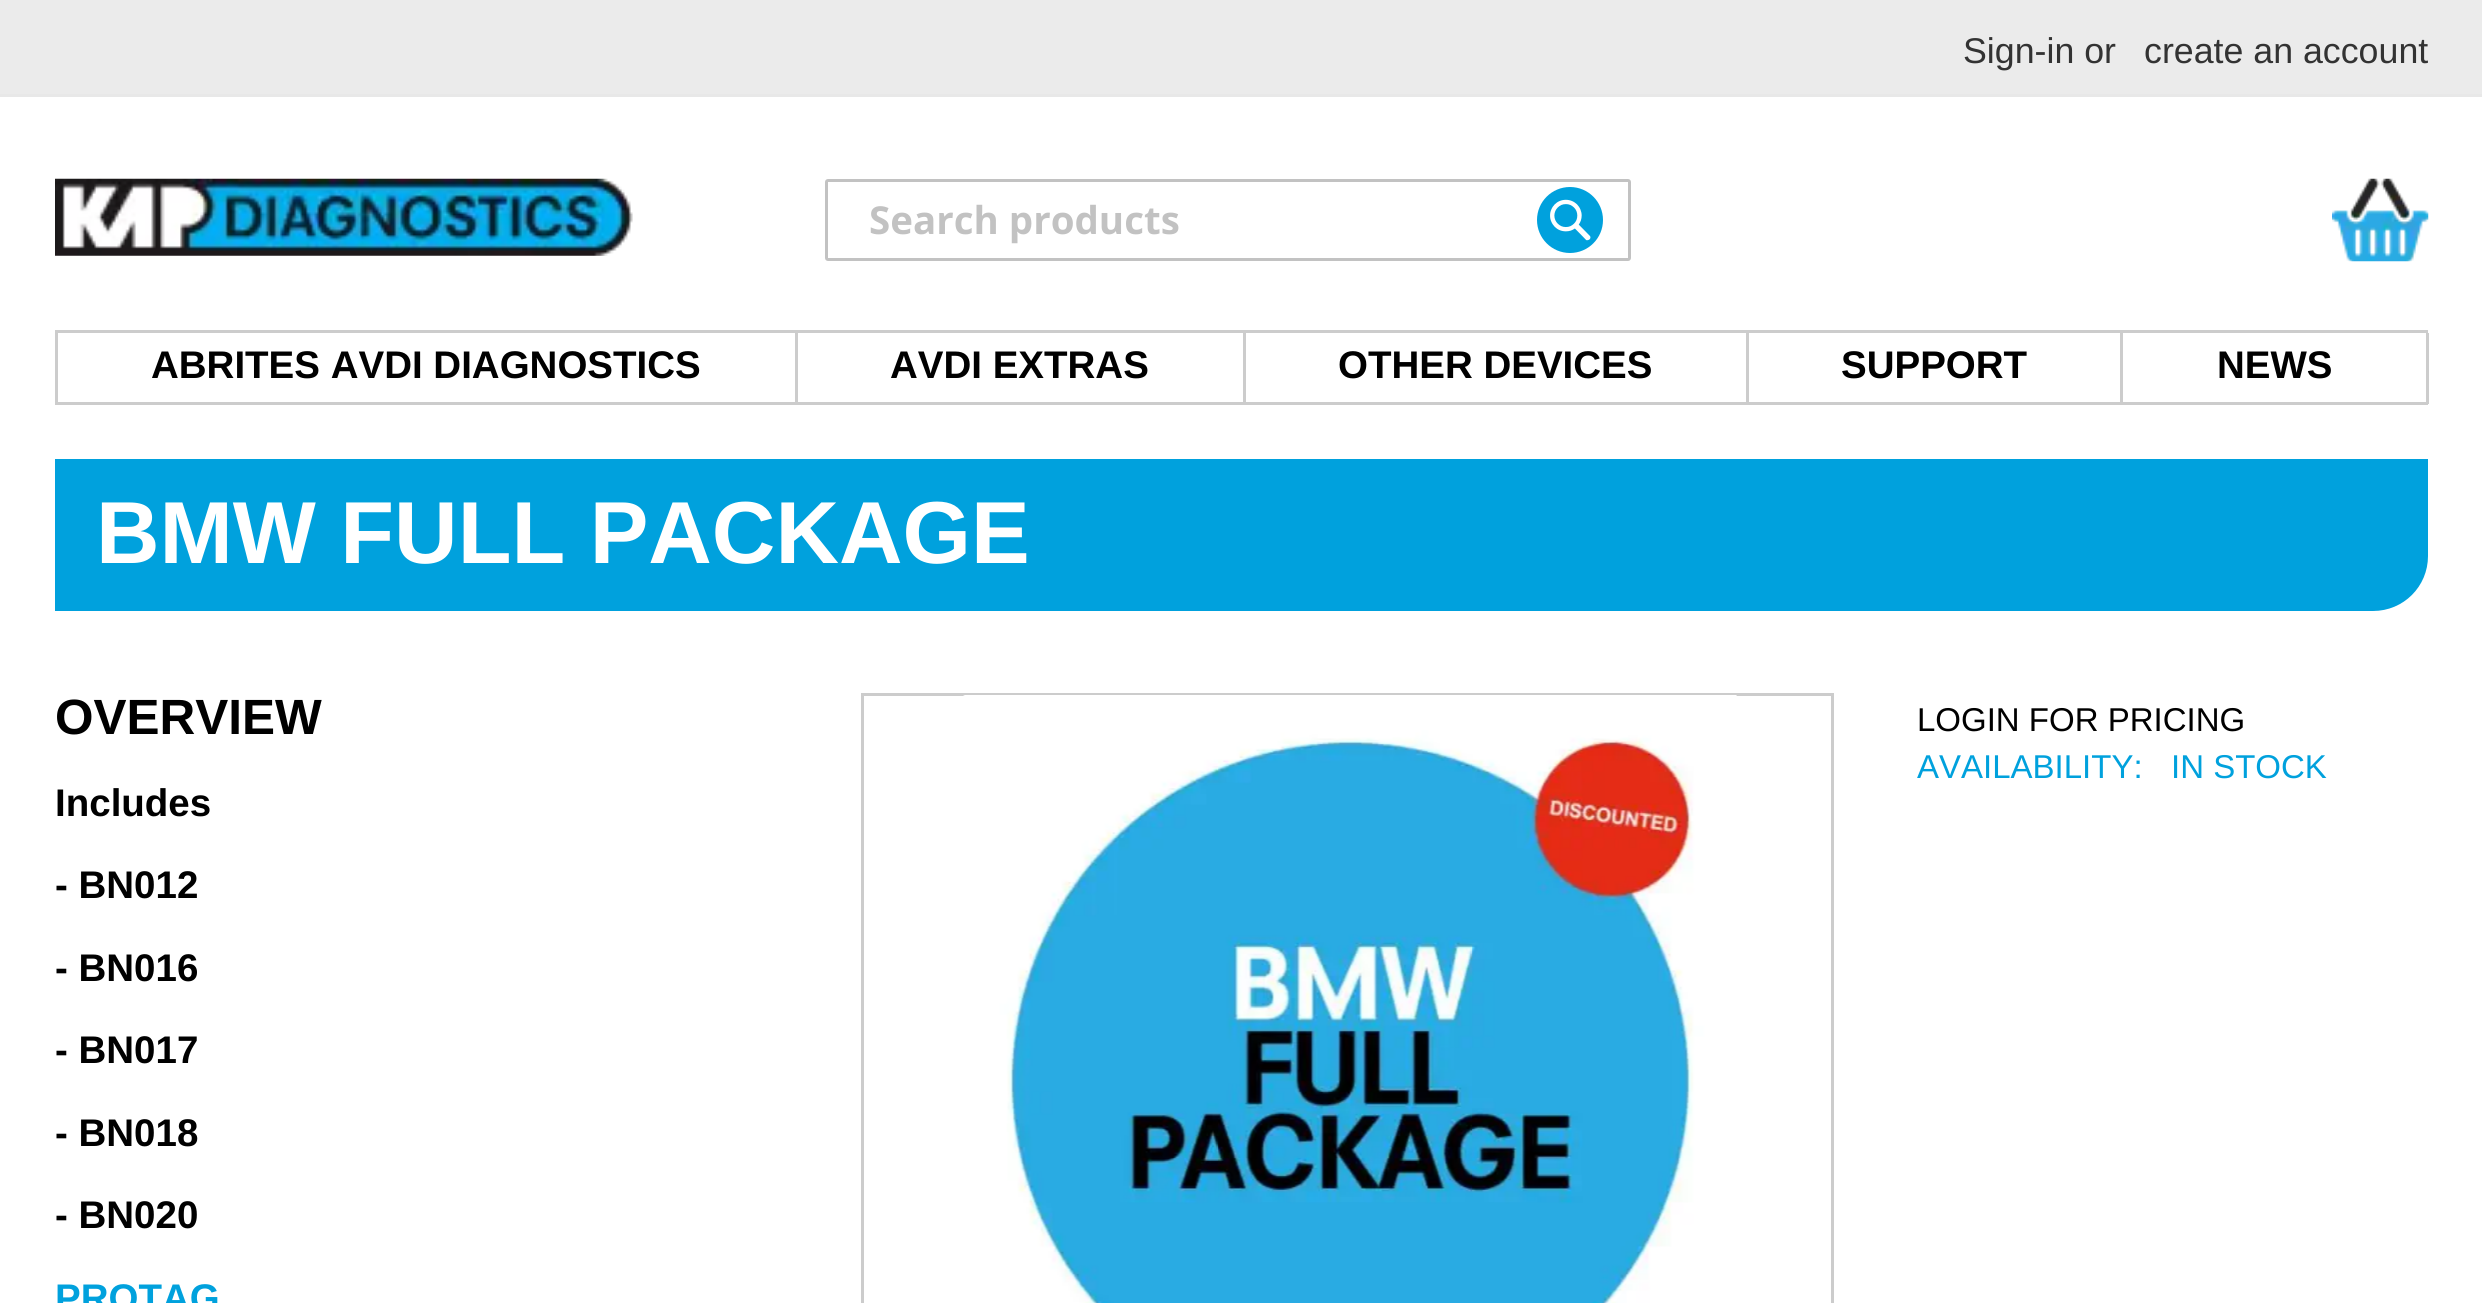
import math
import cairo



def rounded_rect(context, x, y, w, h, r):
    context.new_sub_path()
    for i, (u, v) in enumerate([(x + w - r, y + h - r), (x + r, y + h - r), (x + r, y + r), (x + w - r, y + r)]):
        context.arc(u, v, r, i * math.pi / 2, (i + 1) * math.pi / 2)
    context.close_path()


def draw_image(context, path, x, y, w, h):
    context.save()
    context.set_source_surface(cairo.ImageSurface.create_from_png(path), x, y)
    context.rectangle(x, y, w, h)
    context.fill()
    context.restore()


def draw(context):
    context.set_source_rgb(1, 1, 1)
    context.paint()
    context.set_source_rgb(235 / 255, 235 / 255, 235 / 255)
    context.rectangle(0, 0, 2482, 94)
    context.fill()
    context.set_source_rgb(232 / 255, 232 / 255, 232 / 255)
    context.rectangle(0, 94, 2482, 3)
    context.fill()
    draw_image(context, "images/1.png", 55, 178, 578, 78)
    rounded_rect(context, 826.5, 180.5, 803, 79, 1.5)
    context.set_source_rgb(194 / 255, 194 / 255, 194 / 255)
    context.set_line_width(3)
    context.stroke()
    context.set_source_rgb(0, 161 / 255, 221 / 255)
    context.arc(1570, 220, 33, 0, 2 * math.pi)
    context.fill()
    draw_image(context, "images/2.png", 1550, 199, 41, 42)
    draw_image(context, "images/3.png", 2332, 178, 97, 84)
    context.set_source_rgb(204 / 255, 204 / 255, 204 / 255)
    context.rectangle(55, 330, 2373, 3)
    context.fill()
    context.rectangle(55, 402, 2065, 3)
    context.fill()
    context.rectangle(55, 333, 3, 71)
    context.fill()
    context.rectangle(795, 333, 3, 71)
    context.fill()
    context.rectangle(1243, 333, 3, 71)
    context.fill()
    context.rectangle(1746, 333, 3, 71)
    context.fill()
    context.rectangle(2426, 333, 3, 71)
    context.fill()
    context.rectangle(2120, 402, 308, 3)
    context.fill()
    context.rectangle(2120, 333, 3, 71)
    context.fill()
    context.set_source_rgb(0, 161 / 255, 221 / 255)
    context.new_path()
    context.move_to(55, 459)
    context.line_to(2428, 459)
    context.line_to(2428, 556)
    context.curve_to(2428, 586.5, 2403.5, 611, 2373, 611)
    context.line_to(55, 611)
    context.close_path()
    context.fill()
    context.rectangle(862.5, 694.5, 970, 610)
    context.set_source_rgb(204 / 255, 204 / 255, 204 / 255)
    context.stroke()
    draw_image(context, "images/4.png", 963, 695, 774, 608)
    context.select_font_face("Liberation Sans")
    context.set_font_size(35.75)
    context.set_source_rgb(51 / 255, 51 / 255, 51 / 255)
    context.move_to(1963, 63)
    context.show_text("Sign-in or")
    context.move_to(2144, 63)
    context.show_text("create an account")
    context.select_font_face("Open Sans", cairo.FontSlant.NORMAL, cairo.FontWeight.BOLD)
    context.set_font_size(38.5)
    context.set_source_rgb(194 / 255, 194 / 255, 194 / 255)
    context.move_to(869, 234)
    context.show_text("Search products")
    context.select_font_face("Liberation Sans", cairo.FontSlant.NORMAL, cairo.FontWeight.BOLD)
    context.set_source_rgb(0, 0, 0)
    context.move_to(151, 378)
    context.show_text("ABRITES AVDI DIAGNOSTICS")
    context.move_to(890, 378)
    context.show_text("AVDI EXTRAS")
    context.move_to(1338, 378)
    context.show_text("OTHER DEVICES")
    context.move_to(1841, 378)
    context.show_text("SUPPORT")
    context.move_to(2217, 378)
    context.show_text("NEWS")
    context.set_font_size(88)
    context.set_source_rgb(1, 1, 1)
    context.move_to(96, 563)
    context.show_text("BMW FULL PACKAGE")
    context.set_font_size(49.5)
    context.set_source_rgb(0, 0, 0)
    context.move_to(55, 734)
    context.show_text("OVERVIEW")
    context.set_font_size(38.5)
    context.move_to(55, 816)
    context.show_text("Includes")
    context.move_to(55, 898)
    context.show_text("- BN012")
    context.move_to(55, 981)
    context.show_text("- BN016")
    context.move_to(55, 1063)
    context.show_text("- BN017")
    context.move_to(55, 1146)
    context.show_text("- BN018")
    context.move_to(55, 1228)
    context.show_text("- BN020")
    context.set_source_rgb(0, 161 / 255, 221 / 255)
    context.move_to(55, 1311)
    context.show_text("PROTAG")
    context.select_font_face("Liberation Sans")
    context.set_font_size(33)
    context.set_source_rgb(0, 0, 0)
    context.move_to(1917, 731)
    context.show_text("LOGIN FOR PRICING")
    context.set_source_rgb(0, 161 / 255, 221 / 255)
    context.move_to(1917, 778)
    context.show_text("AVAILABILITY:")
    context.move_to(2171, 778)
    context.show_text("IN STOCK")


surface = cairo.ImageSurface(cairo.Format.RGB24, 2482, 1303)
context = cairo.Context(surface)
options = cairo.FontOptions()
options.set_hint_metrics(cairo.HintMetrics.OFF)
options.set_hint_style(cairo.HintStyle.NONE)
context.set_font_options(options)
context.set_miter_limit(4)
draw(context)
surface.write_to_png("out.png")
